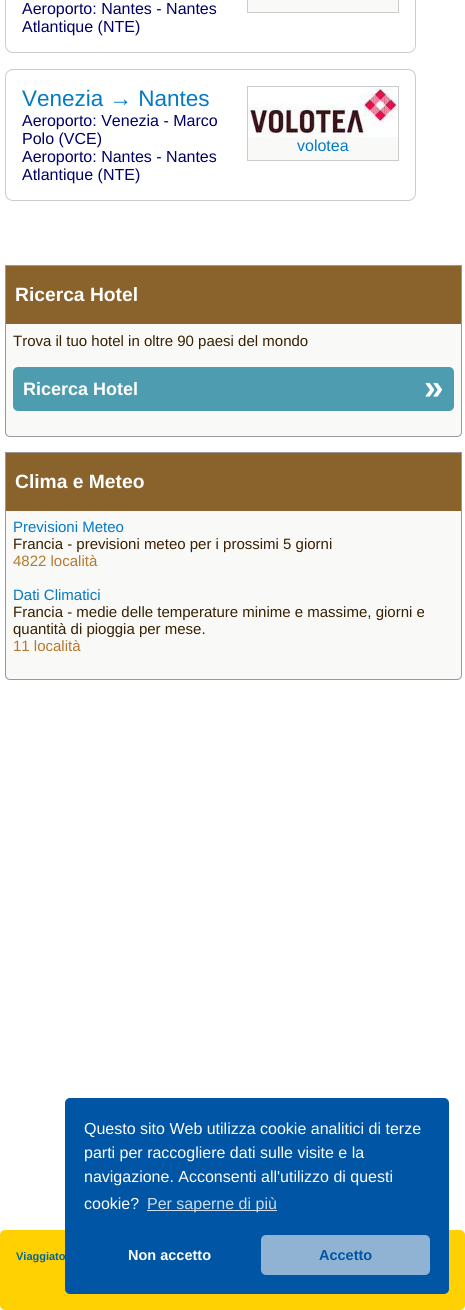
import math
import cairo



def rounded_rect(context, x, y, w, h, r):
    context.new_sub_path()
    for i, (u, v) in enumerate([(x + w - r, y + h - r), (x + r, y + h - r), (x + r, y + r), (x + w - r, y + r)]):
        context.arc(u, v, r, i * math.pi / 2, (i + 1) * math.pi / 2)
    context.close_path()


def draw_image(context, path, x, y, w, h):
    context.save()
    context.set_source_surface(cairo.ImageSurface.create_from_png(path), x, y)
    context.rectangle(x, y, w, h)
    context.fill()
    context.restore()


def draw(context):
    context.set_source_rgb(1, 1, 1)
    context.paint()
    rounded_rect(context, 5.5, -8.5, 410, 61, 7.5)
    context.set_source_rgb(204 / 255, 204 / 255, 204 / 255)
    context.set_line_width(1)
    context.stroke()
    context.set_source_rgb(249 / 255, 249 / 255, 247 / 255)
    context.rectangle(247.5, -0.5, 151, 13)
    context.fill_preserve()
    context.set_source_rgb(204 / 255, 204 / 255, 204 / 255)
    context.stroke()
    rounded_rect(context, 5.5, 69.5, 410, 131, 7.5)
    context.stroke()
    context.set_source_rgb(249 / 255, 249 / 255, 247 / 255)
    context.rectangle(248, 137, 150, 23)
    context.fill()
    context.rectangle(247.5, 86.5, 151, 74)
    context.set_source_rgb(204 / 255, 204 / 255, 204 / 255)
    context.stroke()
    draw_image(context, "images/1.png", 248, 87, 150, 50)
    context.set_source_rgb(249 / 255, 249 / 255, 247 / 255)
    context.new_path()
    context.move_to(5.5, 265.5)
    context.line_to(461.5, 265.5)
    context.line_to(461.5, 432)
    context.curve_to(461.5, 434.5, 459.5, 436.5, 457, 436.5)
    context.line_to(10, 436.5)
    context.curve_to(7.5, 436.5, 5.5, 434.5, 5.5, 432)
    context.close_path()
    context.fill_preserve()
    context.set_source_rgb(153 / 255, 153 / 255, 153 / 255)
    context.stroke()
    context.set_source_rgb(137 / 255, 98 / 255, 44 / 255)
    context.rectangle(6, 266, 455, 58)
    context.fill()
    context.set_source_rgb(78 / 255, 156 / 255, 175 / 255)
    rounded_rect(context, 13, 367, 441, 44, 5)
    context.fill()
    context.set_source_rgb(249 / 255, 249 / 255, 247 / 255)
    context.new_path()
    context.move_to(5.5, 452.5)
    context.line_to(461.5, 452.5)
    context.line_to(461.5, 675)
    context.curve_to(461.5, 677.5, 459.5, 679.5, 457, 679.5)
    context.line_to(10, 679.5)
    context.curve_to(7.5, 679.5, 5.5, 677.5, 5.5, 675)
    context.close_path()
    context.fill_preserve()
    context.set_source_rgb(153 / 255, 153 / 255, 153 / 255)
    context.stroke()
    context.set_source_rgb(137 / 255, 98 / 255, 44 / 255)
    context.rectangle(6, 453, 455, 58)
    context.fill()
    context.set_source_rgb(1, 208 / 255, 2 / 255)
    rounded_rect(context, 0, 1230, 465, 80, 5)
    context.fill()
    context.select_font_face("Liberation Sans")
    context.set_font_size(16)
    context.set_source_rgb(0, 0, 102 / 255)
    context.move_to(22, 14)
    context.show_text("Aeroporto: Nantes - Nantes")
    context.move_to(22, 32)
    context.show_text("Atlantique (NTE)")
    context.set_font_size(22.5)
    context.set_source_rgb(2 / 255, 122 / 255, 198 / 255)
    context.move_to(22, 106)
    context.show_text("Venezia → Nantes")
    context.set_font_size(16)
    context.set_source_rgb(0, 0, 102 / 255)
    context.move_to(22, 126)
    context.show_text("Aeroporto: Venezia - Marco")
    context.move_to(22, 144)
    context.show_text("Polo (VCE)")
    context.move_to(22, 162)
    context.show_text("Aeroporto: Nantes - Nantes")
    context.move_to(22, 180)
    context.show_text("Atlantique (NTE)")
    context.set_source_rgb(2 / 255, 122 / 255, 198 / 255)
    context.move_to(297, 151)
    context.show_text("volotea")
    context.select_font_face("Liberation Sans", cairo.FontSlant.NORMAL, cairo.FontWeight.BOLD)
    context.set_font_size(19.25)
    context.set_source_rgb(1, 1, 1)
    context.move_to(15, 301)
    context.show_text("Ricerca Hotel")
    context.select_font_face("Liberation Sans")
    context.set_font_size(15)
    context.set_source_rgb(56 / 255, 32 / 255, 0)
    context.move_to(13, 346)
    context.show_text("Trova il tuo hotel in oltre 90 paesi del mondo")
    context.select_font_face("Liberation Sans", cairo.FontSlant.NORMAL, cairo.FontWeight.BOLD)
    context.set_font_size(18)
    context.set_source_rgb(1, 1, 1)
    context.move_to(23, 395)
    context.show_text("Ricerca Hotel")
    context.set_font_size(35)
    context.move_to(424, 399)
    context.show_text("»")
    context.set_font_size(19.25)
    context.move_to(15, 488)
    context.show_text("Clima e Meteo")
    context.select_font_face("Liberation Sans")
    context.set_font_size(15)
    context.set_source_rgb(2 / 255, 122 / 255, 198 / 255)
    context.move_to(13, 532)
    context.show_text("Previsioni Meteo")
    context.set_source_rgb(56 / 255, 32 / 255, 0)
    context.move_to(13, 549)
    context.show_text("Francia - previsioni meteo per i prossimi 5 giorni")
    context.set_source_rgb(182 / 255, 120 / 255, 45 / 255)
    context.move_to(13, 566)
    context.show_text("4822 località")
    context.set_source_rgb(2 / 255, 122 / 255, 198 / 255)
    context.move_to(13, 600)
    context.show_text("Dati Climatici")
    context.set_source_rgb(56 / 255, 32 / 255, 0)
    context.move_to(13, 617)
    context.show_text("Francia - medie delle temperature minime e massime, giorni e")
    context.move_to(13, 634)
    context.show_text("quantità di pioggia per mese.")
    context.set_source_rgb(182 / 255, 120 / 255, 45 / 255)
    context.move_to(13, 651)
    context.show_text("11 località")
    context.select_font_face("Liberation Sans", cairo.FontSlant.NORMAL, cairo.FontWeight.BOLD)
    context.set_font_size(11)
    context.set_source_rgb(0, 102 / 255, 153 / 255)
    context.move_to(16, 1260)
    context.show_text("Viaggiato")
    context.set_source_rgb(0, 85 / 255, 164 / 255)
    rounded_rect(context, 65, 1098, 384, 196, 5)
    context.fill()
    context.select_font_face("Liberation Sans")
    context.set_font_size(16)
    context.set_source_rgb(1, 1, 1)
    context.move_to(84, 1134)
    context.show_text("Questo sito Web utilizza cookie analitici di terze")
    context.move_to(84, 1158)
    context.show_text("parti per raccogliere dati sulle visite e la")
    context.move_to(84, 1182)
    context.show_text("navigazione. Acconsenti all'utilizzo di questi")
    context.move_to(84, 1209)
    context.show_text("cookie?")
    context.set_source_rgb(204 / 255, 221 / 255, 237 / 255)
    context.rectangle(147, 1210, 130, 1)
    context.fill()
    context.move_to(147, 1209)
    context.show_text("Per saperne di più")
    context.select_font_face("Liberation Sans", cairo.FontSlant.NORMAL, cairo.FontWeight.BOLD)
    context.set_font_size(14.5)
    context.set_source_rgb(1, 1, 1)
    context.move_to(128, 1260)
    context.show_text("Non accetto")
    context.set_source_rgb(145 / 255, 179 / 255, 211 / 255)
    rounded_rect(context, 261, 1235, 169, 40, 5)
    context.fill()
    context.set_source_rgb(0, 85 / 255, 164 / 255)
    context.move_to(319, 1260)
    context.show_text("Accetto")


surface = cairo.ImageSurface(cairo.Format.RGB24, 465, 1310)
context = cairo.Context(surface)
options = cairo.FontOptions()
options.set_hint_metrics(cairo.HintMetrics.OFF)
options.set_hint_style(cairo.HintStyle.NONE)
context.set_font_options(options)
context.set_miter_limit(4)
draw(context)
surface.write_to_png("out.png")
